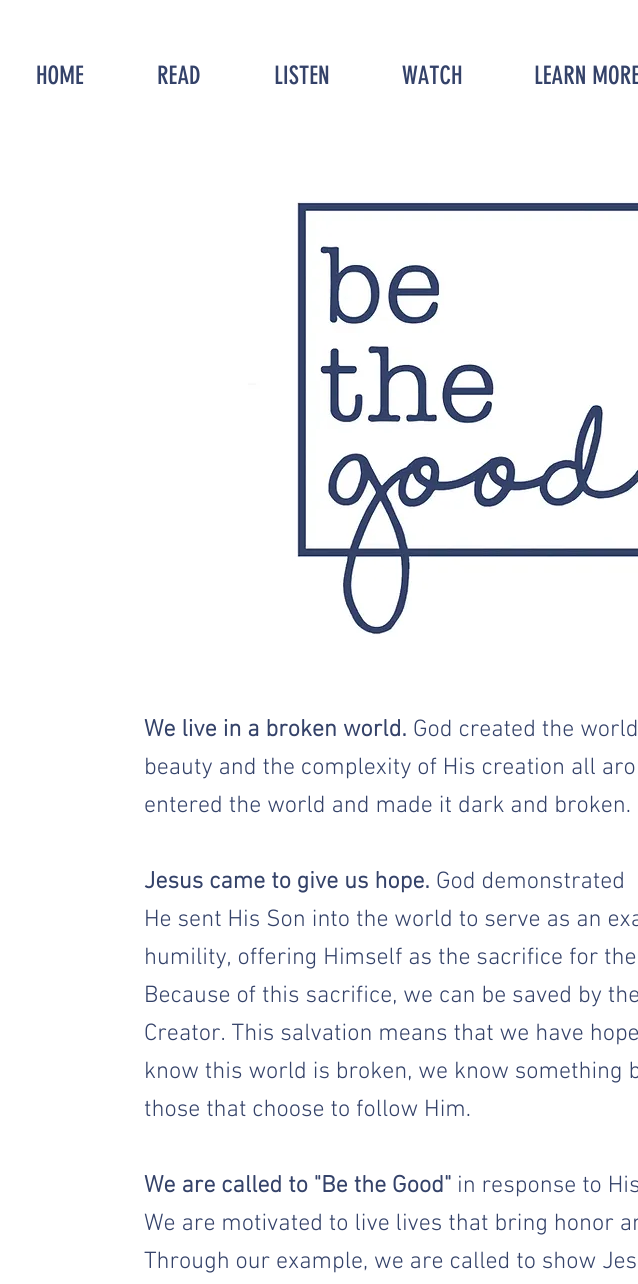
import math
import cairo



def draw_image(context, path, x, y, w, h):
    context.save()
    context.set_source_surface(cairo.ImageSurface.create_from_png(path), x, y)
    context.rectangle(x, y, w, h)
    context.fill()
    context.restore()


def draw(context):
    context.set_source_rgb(1, 1, 1)
    context.paint()
    draw_image(context, "images/1.png", 248, 201, 390, 436)
    context.select_font_face("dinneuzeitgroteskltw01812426")
    context.set_font_size(25)
    context.set_source_rgb(52 / 255, 66 / 255, 105 / 255)
    context.move_to(36, 84)
    context.show_text("HOME")
    context.move_to(157, 84)
    context.show_text("READ")
    context.move_to(274, 84)
    context.show_text("LISTEN")
    context.move_to(402, 84)
    context.show_text("WATCH")
    context.move_to(534, 84)
    context.show_text("LEARN MORE")
    context.select_font_face("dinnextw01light", cairo.FontSlant.NORMAL, cairo.FontWeight.BOLD)
    context.set_font_size(24)
    context.move_to(144, 736)
    context.show_text("We live in a broken world.")
    context.select_font_face("dinnextw01light Light")
    context.move_to(413, 736)
    context.show_text("God created the world")
    context.move_to(144, 774)
    context.show_text("beauty and the complexity of His creation all aro")
    context.move_to(144, 812)
    context.show_text("entered the world and made it dark and broken.")
    context.select_font_face("dinnextw01light", cairo.FontSlant.NORMAL, cairo.FontWeight.BOLD)
    context.move_to(144, 888)
    context.show_text("Jesus came to give us hope.")
    context.select_font_face("dinnextw01light Light")
    context.move_to(436, 888)
    context.show_text("God demonstrated")
    context.move_to(144, 926)
    context.show_text("He sent His Son into the world to serve as an exa")
    context.move_to(144, 964)
    context.show_text("humility, offering Himself as the sacrifice for the")
    context.move_to(144, 1002)
    context.show_text("Because of this sacrifice, we can be saved by the")
    context.move_to(144, 1040)
    context.show_text("Creator. This salvation means that we have hope")
    context.move_to(144, 1078)
    context.show_text("know this world is broken, we know something b")
    context.move_to(144, 1116)
    context.show_text("those that choose to follow Him.")
    context.select_font_face("dinnextw01light", cairo.FontSlant.NORMAL, cairo.FontWeight.BOLD)
    context.move_to(144, 1192)
    context.show_text("We are called to \"Be the Good\"")
    context.select_font_face("dinnextw01light Light")
    context.move_to(457, 1192)
    context.show_text("in response to His")
    context.move_to(144, 1230)
    context.show_text("We are motivated to live lives that bring honor an")
    context.move_to(144, 1268)
    context.show_text("Through our example, we are called to show Jes")


surface = cairo.ImageSurface(cairo.Format.RGB24, 638, 1284)
context = cairo.Context(surface)
options = cairo.FontOptions()
options.set_hint_metrics(cairo.HintMetrics.OFF)
options.set_hint_style(cairo.HintStyle.NONE)
context.set_font_options(options)
context.set_miter_limit(4)
draw(context)
surface.write_to_png("out.png")
